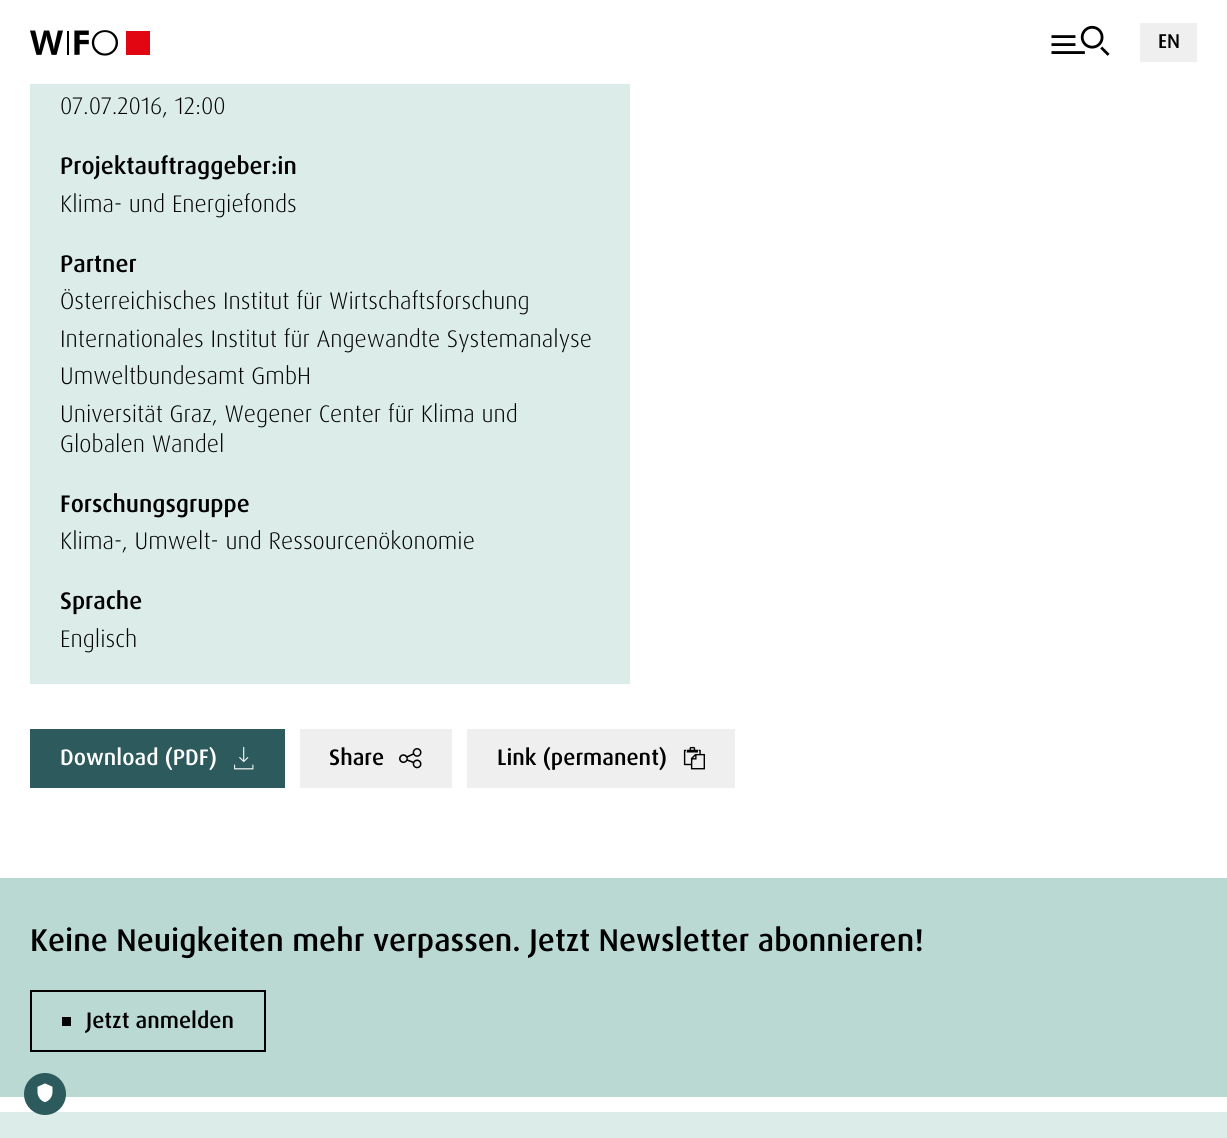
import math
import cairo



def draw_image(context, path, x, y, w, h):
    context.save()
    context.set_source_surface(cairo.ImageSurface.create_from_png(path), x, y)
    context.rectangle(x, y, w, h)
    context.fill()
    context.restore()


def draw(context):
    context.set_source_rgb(1, 1, 1)
    context.paint()
    draw_image(context, "images/1.png", 30, 30, 120, 26)
    draw_image(context, "images/2.png", 1051, 25, 59, 31)
    context.set_source_rgb(239 / 255, 239 / 255, 239 / 255)
    context.rectangle(1140, 23, 57, 39)
    context.fill()
    context.set_source_rgb(219 / 255, 236 / 255, 233 / 255)
    context.rectangle(30, 84, 600, 600)
    context.fill()
    context.set_source_rgb(44 / 255, 90 / 255, 93 / 255)
    context.rectangle(30, 729, 255, 59)
    context.fill()
    draw_image(context, "images/3.png", 234, 746, 20, 24)
    context.set_source_rgb(239 / 255, 239 / 255, 239 / 255)
    context.rectangle(300, 729, 152, 59)
    context.fill()
    draw_image(context, "images/4.png", 399, 748, 23, 21)
    context.rectangle(467, 729, 268, 59)
    context.fill()
    draw_image(context, "images/5.png", 683, 746, 22, 24)
    context.set_source_rgb(219 / 255, 236 / 255, 233 / 255)
    context.rectangle(0, 1112, 1227, 26)
    context.fill()
    context.set_source_rgb(185 / 255, 217 / 255, 210 / 255)
    context.rectangle(0, 878, 1227, 219)
    context.fill()
    context.rectangle(31, 991, 234, 60)
    context.set_source_rgb(0, 0, 0)
    context.stroke()
    context.rectangle(62, 1017, 9, 9)
    context.fill()
    context.set_source_rgb(44 / 255, 90 / 255, 93 / 255)
    context.arc(45, 1094, 21, 0, 2 * math.pi)
    context.fill()
    draw_image(context, "images/6.png", 37, 1083, 16, 20)
    context.select_font_face("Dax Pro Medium")
    context.set_font_size(20)
    context.set_source_rgb(0, 0, 0)
    context.move_to(1158, 48)
    context.show_text("EN")
    context.select_font_face("Dax Pro Light")
    context.set_font_size(24)
    context.move_to(60, 114)
    context.show_text("07.07.2016, 12:00")
    context.select_font_face("Dax Pro Medium")
    context.move_to(60, 174)
    context.show_text("Projektauftraggeber:in")
    context.select_font_face("Dax Pro Light")
    context.move_to(60, 212)
    context.show_text("Klima- und Energiefonds")
    context.select_font_face("Dax Pro Medium")
    context.move_to(60, 272)
    context.show_text("Partner")
    context.select_font_face("Dax Pro Light")
    context.move_to(60, 309)
    context.show_text("Österreichisches Institut für Wirtschaftsforschung")
    context.move_to(60, 347)
    context.show_text("Internationales Institut für Angewandte Systemanalyse")
    context.move_to(60, 384)
    context.show_text("Umweltbundesamt GmbH")
    context.move_to(60, 422)
    context.show_text("Universität Graz, Wegener Center für Klima und")
    context.move_to(60, 452)
    context.show_text("Globalen Wandel")
    context.select_font_face("Dax Pro Medium")
    context.move_to(60, 512)
    context.show_text("Forschungsgruppe")
    context.select_font_face("Dax Pro Light")
    context.move_to(60, 549)
    context.show_text("Klima-, Umwelt- und Ressourcenökonomie")
    context.select_font_face("Dax Pro Medium")
    context.move_to(60, 609)
    context.show_text("Sprache")
    context.select_font_face("Dax Pro Light")
    context.move_to(60, 647)
    context.show_text("Englisch")
    context.select_font_face("Dax Pro Medium")
    context.set_font_size(22.5)
    context.set_source_rgb(1, 1, 1)
    context.move_to(60, 765)
    context.show_text("Download (PDF)")
    context.set_source_rgb(0, 0, 0)
    context.move_to(329, 765)
    context.show_text("Share")
    context.move_to(497, 765)
    context.show_text("Link (permanent)")
    context.set_font_size(31.5)
    context.move_to(30, 951)
    context.show_text("Keine Neuigkeiten mehr verpassen. Jetzt Newsletter abonnieren!")
    context.set_font_size(22.5)
    context.move_to(86, 1028)
    context.show_text("Jetzt anmelden")


surface = cairo.ImageSurface(cairo.Format.RGB24, 1227, 1138)
context = cairo.Context(surface)
options = cairo.FontOptions()
options.set_hint_metrics(cairo.HintMetrics.OFF)
options.set_hint_style(cairo.HintStyle.NONE)
context.set_font_options(options)
context.set_miter_limit(4)
draw(context)
surface.write_to_png("out.png")
